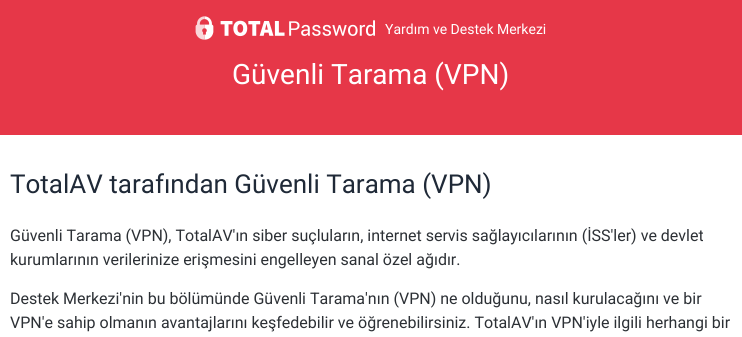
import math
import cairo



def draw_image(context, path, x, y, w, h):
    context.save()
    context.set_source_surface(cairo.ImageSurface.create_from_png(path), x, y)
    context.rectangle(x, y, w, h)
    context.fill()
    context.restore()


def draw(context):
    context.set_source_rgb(1, 1, 1)
    context.paint()
    context.set_source_rgb(230 / 255, 55 / 255, 72 / 255)
    context.rectangle(0, 0, 742, 135)
    context.fill()
    draw_image(context, "images/1.png", 195, 16, 180, 24)
    context.select_font_face("Roboto")
    context.set_font_size(14)
    context.set_source_rgb(1, 1, 1)
    context.move_to(385, 34)
    context.show_text("Yardım ve Destek Merkezi")
    context.set_font_size(28)
    context.move_to(232, 84)
    context.show_text("Güvenli Tarama (VPN)")
    context.set_font_size(26)
    context.set_source_rgb(31 / 255, 41 / 255, 55 / 255)
    context.move_to(10, 193)
    context.show_text("TotalAV tarafından Güvenli Tarama (VPN)")
    context.set_font_size(16)
    context.set_source_rgb(44 / 255, 48 / 255, 53 / 255)
    context.move_to(10, 241)
    context.show_text("Güvenli Tarama (VPN), TotalAV'ın siber suçluların, internet servis sağlayıcılarının (İSS'ler) ve devlet")
    context.move_to(10, 265)
    context.show_text("kurumlarının verilerinize erişmesini engelleyen sanal özel ağıdır.")
    context.move_to(10, 304)
    context.show_text("Destek Merkezi'nin bu bölümünde Güvenli Tarama'nın (VPN) ne olduğunu, nasıl kurulacağını ve bir")
    context.move_to(10, 328)
    context.show_text("VPN'e sahip olmanın avantajlarını keşfedebilir ve öğrenebilirsiniz. TotalAV'ın VPN'iyle ilgili herhangi bir")


surface = cairo.ImageSurface(cairo.Format.RGB24, 742, 337)
context = cairo.Context(surface)
options = cairo.FontOptions()
options.set_hint_metrics(cairo.HintMetrics.OFF)
options.set_hint_style(cairo.HintStyle.NONE)
context.set_font_options(options)
context.set_miter_limit(4)
draw(context)
surface.write_to_png("out.png")
